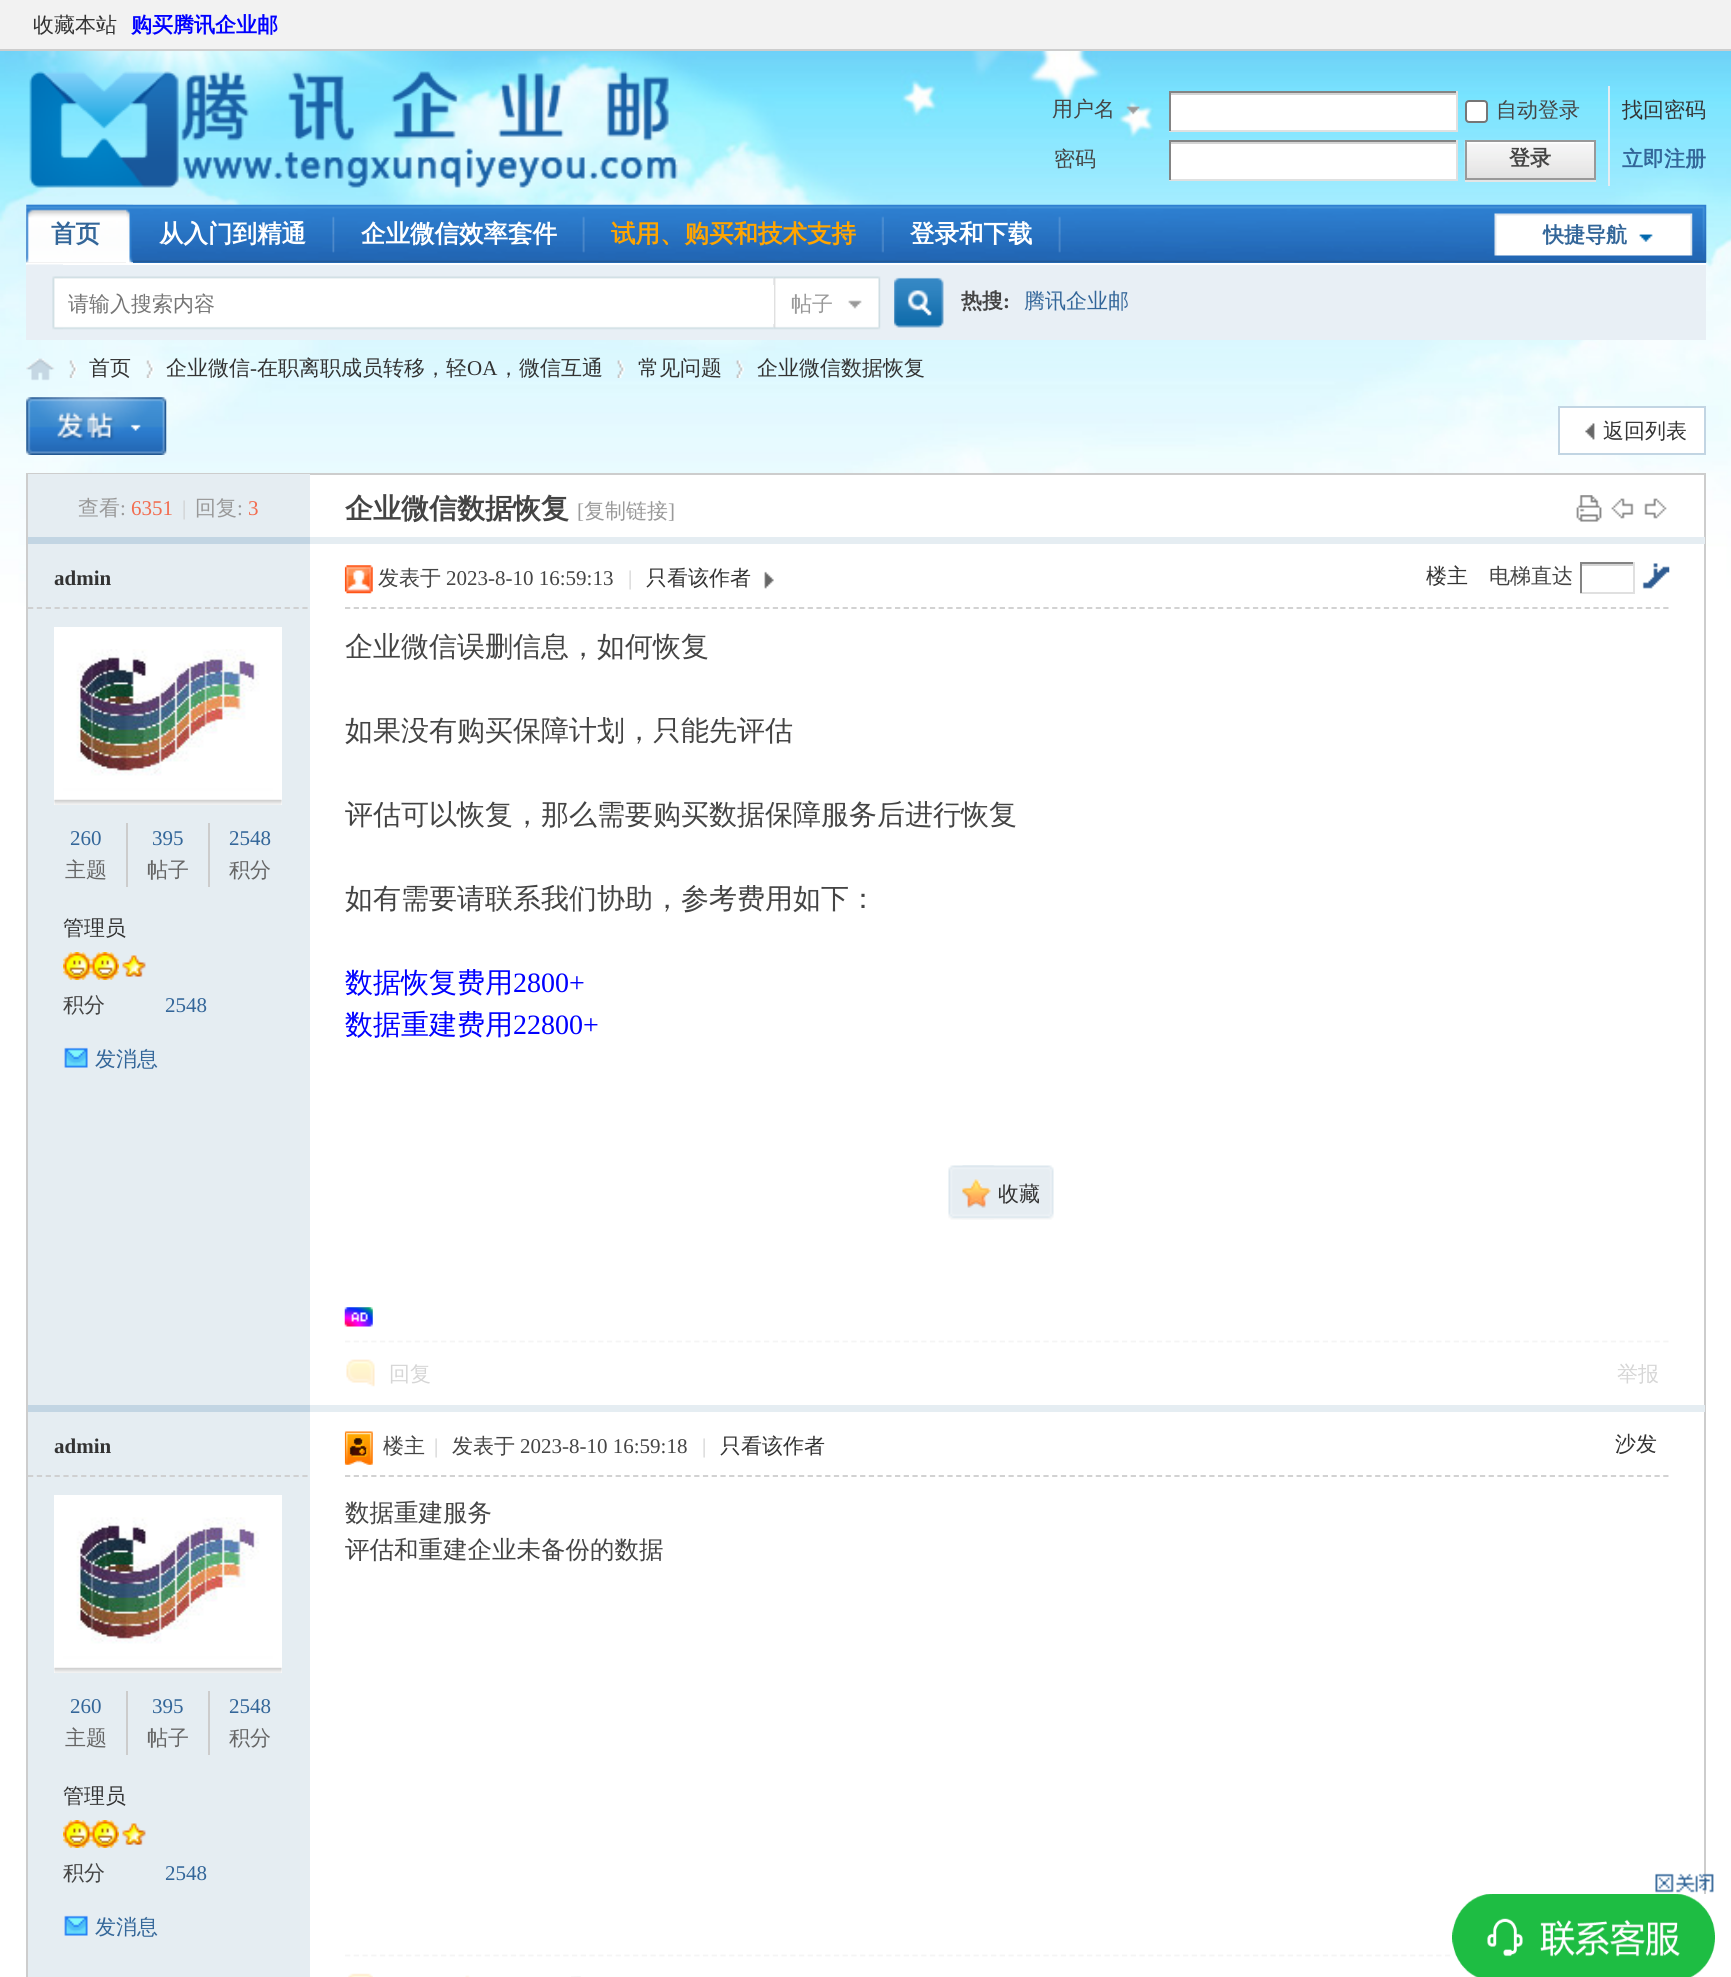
import math
import cairo



def rounded_rect(context, x, y, w, h, r):
    context.new_sub_path()
    for i, (u, v) in enumerate([(x + w - r, y + h - r), (x + r, y + h - r), (x + r, y + r), (x + w - r, y + r)]):
        context.arc(u, v, r, i * math.pi / 2, (i + 1) * math.pi / 2)
    context.close_path()


def draw_image(context, path, x, y, w, h):
    context.save()
    context.set_source_surface(cairo.ImageSurface.create_from_png(path), x, y)
    context.rectangle(x, y, w, h)
    context.fill()
    context.restore()


def draw(context):
    context.set_source_rgb(1, 1, 1)
    context.paint()
    draw_image(context, "images/1.png", 0, 51, 1731, 555)
    context.set_source_rgb(242 / 255, 242 / 255, 242 / 255)
    context.rectangle(0, 0, 1731, 49)
    context.fill()
    context.set_source_rgb(205 / 255, 205 / 255, 205 / 255)
    context.rectangle(0, 49, 1731, 2)
    context.fill()
    draw_image(context, "images/2.png", 29, 71, 649, 117)
    draw_image(context, "images/3.png", 1126, 106, 14, 9)
    context.set_source_rgb(1, 1, 1)
    context.rectangle(1171, 95, 285, 35)
    context.fill()
    context.set_source_rgb(212 / 255, 212 / 255, 212 / 255)
    context.rectangle(1169, 93, 289, 2)
    context.fill()
    context.set_source_rgb(132 / 255, 132 / 255, 132 / 255)
    context.rectangle(1169, 91, 289, 2)
    context.fill()
    context.set_source_rgb(224 / 255, 224 / 255, 224 / 255)
    context.rectangle(1456, 91, 2, 40)
    context.fill()
    context.rectangle(1169, 130, 289, 2)
    context.fill()
    context.set_source_rgb(132 / 255, 132 / 255, 132 / 255)
    context.rectangle(1169, 91, 2, 40)
    context.fill()
    context.set_source_rgb(1, 1, 1)
    rounded_rect(context, 1466, 101, 21, 21, 3)
    context.fill_preserve()
    context.set_source_rgb(118 / 255, 118 / 255, 118 / 255)
    context.stroke()
    context.set_source_rgb(1, 1, 1)
    context.rectangle(1171, 144, 285, 35)
    context.fill()
    context.set_source_rgb(212 / 255, 212 / 255, 212 / 255)
    context.rectangle(1169, 142, 289, 2)
    context.fill()
    context.set_source_rgb(132 / 255, 132 / 255, 132 / 255)
    context.rectangle(1169, 140, 289, 2)
    context.fill()
    context.set_source_rgb(224 / 255, 224 / 255, 224 / 255)
    context.rectangle(1456, 140, 2, 40)
    context.fill()
    context.rectangle(1169, 179, 289, 2)
    context.fill()
    context.set_source_rgb(132 / 255, 132 / 255, 132 / 255)
    context.rectangle(1169, 140, 2, 40)
    context.fill()
    context.set_source_rgb(229 / 255, 237 / 255, 242 / 255)
    context.rectangle(1608, 86, 2, 100)
    context.fill()
    context.set_source_rgb(229 / 255, 229 / 255, 229 / 255)
    context.rectangle(1465, 180, 131, 2)
    context.fill()
    draw_image(context, "images/4.png", 1464, 141, 132, 40)
    context.rectangle(1466, 141, 129, 38)
    context.set_source_rgb(153 / 255, 153 / 255, 153 / 255)
    context.stroke()
    context.set_source_rgb(43 / 255, 122 / 255, 205 / 255)
    context.rectangle(133, 262, 1573, 1)
    context.fill()
    draw_image(context, "images/5.png", 26, 204, 1681, 59)
    context.set_source_rgb(1, 1, 1)
    context.rectangle(126, 262, 7, 1)
    context.fill()
    draw_image(context, "images/6.png", 26, 204, 107, 59)
    context.set_source_rgb(238 / 255, 238 / 255, 238 / 255)
    context.rectangle(26, 205, 100, 58)
    context.fill()
    draw_image(context, "images/7.png", 26, 204, 100, 59)
    draw_image(context, "images/8.png", 332, 216, 3, 37)
    draw_image(context, "images/9.png", 582, 216, 3, 37)
    draw_image(context, "images/10.png", 881, 216, 3, 37)
    draw_image(context, "images/11.png", 1058, 216, 3, 37)
    draw_image(context, "images/12.png", 1494, 213, 199, 43)
    context.set_source_rgb(232 / 255, 239 / 255, 245 / 255)
    context.rectangle(26, 265, 1680, 75)
    context.fill()
    context.set_source_rgb(1, 1, 1)
    context.rectangle(26, 263, 1680, 2)
    context.fill()
    draw_image(context, "images/13.png", 26, 264, 37, 66)
    draw_image(context, "images/14.png", 63, 276, 711, 54)
    draw_image(context, "images/15.png", 773, 276, 108, 54)
    context.rectangle(773, 285, 1, 39)
    context.fill()
    draw_image(context, "images/16.png", 894, 277, 50, 51)
    draw_image(context, "images/17.png", 26, 358, 29, 23)
    draw_image(context, "images/18.png", 69, 360, 8, 18)
    draw_image(context, "images/19.png", 146, 360, 8, 18)
    draw_image(context, "images/20.png", 617, 360, 8, 18)
    draw_image(context, "images/21.png", 736, 360, 8, 18)
    draw_image(context, "images/22.png", 26, 397, 141, 58)
    context.rectangle(1560, 408, 144, 45)
    context.fill()
    draw_image(context, "images/23.png", 1585, 423, 10, 17)
    context.rectangle(1559, 407, 146, 47)
    context.set_source_rgb(194 / 255, 213 / 255, 227 / 255)
    context.stroke()
    context.set_source_rgb(1, 1, 1)
    context.rectangle(310, 475, 1394, 131)
    context.fill()
    context.rectangle(27, 474, 1678, 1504)
    context.set_source_rgb(205 / 255, 205 / 255, 205 / 255)
    context.stroke()
    context.set_source_rgb(229 / 255, 237 / 255, 242 / 255)
    context.rectangle(28, 474, 282, 63)
    context.fill()
    draw_image(context, "images/24.png", 1576, 495, 26, 27)
    draw_image(context, "images/25.png", 1611, 498, 23, 21)
    draw_image(context, "images/26.png", 1644, 498, 23, 21)
    context.set_source_rgb(194 / 255, 213 / 255, 227 / 255)
    context.rectangle(28, 537, 282, 7)
    context.fill()
    context.set_source_rgb(229 / 255, 237 / 255, 242 / 255)
    context.rectangle(310, 537, 1395, 7)
    context.fill()
    context.rectangle(28, 544, 282, 861)
    context.fill()
    context.new_path()
    context.move_to(28, 608)
    context.line_to(308, 608)
    context.set_source_rgb(205 / 255, 205 / 255, 205 / 255)
    context.set_line_width(1.8)
    context.set_dash([5.25, 3.6])
    context.stroke()
    context.set_source_rgb(1, 1, 1)
    context.rectangle(54, 627, 228, 178)
    context.fill()
    draw_image(context, "images/27.png", 54, 649, 228, 156)
    context.set_source_rgb(204 / 255, 204 / 255, 204 / 255)
    context.rectangle(126, 823, 2, 64)
    context.fill()
    context.rectangle(208, 823, 2, 64)
    context.fill()
    draw_image(context, "images/28.png", 63, 952, 28, 28)
    draw_image(context, "images/29.png", 91, 952, 28, 28)
    draw_image(context, "images/30.png", 122, 955, 24, 22)
    draw_image(context, "images/31.png", 64, 1047, 24, 21)
    context.new_path()
    context.move_to(345, 608)
    context.line_to(1669.5, 608)
    context.set_source_rgb(205 / 255, 205 / 255, 205 / 255)
    context.set_dash([5.25, 3.48])
    context.stroke()
    draw_image(context, "images/32.png", 344, 565, 29, 29)
    draw_image(context, "images/33.png", 764, 571, 10, 18)
    context.set_source_rgb(212 / 255, 212 / 255, 212 / 255)
    context.rectangle(1580, 564, 55, 2)
    context.fill()
    context.set_source_rgb(132 / 255, 132 / 255, 132 / 255)
    context.rectangle(1580, 562, 55, 2)
    context.fill()
    context.set_source_rgb(224 / 255, 224 / 255, 224 / 255)
    context.rectangle(1633, 562, 2, 31)
    context.fill()
    context.rectangle(1580, 592, 55, 2)
    context.fill()
    context.set_source_rgb(132 / 255, 132 / 255, 132 / 255)
    context.rectangle(1580, 562, 2, 31)
    context.fill()
    draw_image(context, "images/34.png", 1642, 563, 28, 26)
    draw_image(context, "images/35.png", 948, 1165, 47, 55)
    draw_image(context, "images/36.png", 962, 1165, 92, 55)
    draw_image(context, "images/37.png", 962, 1179, 29, 29)
    draw_image(context, "images/38.png", 344, 1307, 29, 20)
    context.new_path()
    context.move_to(345, 1341.5)
    context.line_to(1669.5, 1341.5)
    context.set_source_rgb(245 / 255, 245 / 255, 245 / 255)
    context.stroke()
    draw_image(context, "images/39.png", 346, 1359, 29, 28)
    context.set_source_rgb(194 / 255, 213 / 255, 227 / 255)
    context.rectangle(28, 1405, 282, 7)
    context.fill()
    context.set_source_rgb(229 / 255, 237 / 255, 242 / 255)
    context.rectangle(310, 1405, 1395, 7)
    context.fill()
    context.rectangle(28, 1412, 282, 565)
    context.fill()
    context.new_path()
    context.move_to(28, 1476)
    context.line_to(308, 1476)
    context.set_source_rgb(205 / 255, 205 / 255, 205 / 255)
    context.set_dash([5.25, 3.6])
    context.stroke()
    context.set_source_rgb(1, 1, 1)
    context.rectangle(54, 1495, 228, 178)
    context.fill()
    draw_image(context, "images/27.png", 54, 1517, 228, 156)
    context.set_source_rgb(204 / 255, 204 / 255, 204 / 255)
    context.rectangle(126, 1691, 2, 64)
    context.fill()
    context.rectangle(208, 1691, 2, 64)
    context.fill()
    draw_image(context, "images/40.png", 63, 1820, 28, 28)
    draw_image(context, "images/41.png", 91, 1820, 28, 28)
    draw_image(context, "images/42.png", 122, 1823, 24, 22)
    draw_image(context, "images/31.png", 64, 1915, 24, 21)
    context.new_path()
    context.move_to(345, 1476)
    context.line_to(1669.5, 1476)
    context.set_source_rgb(205 / 255, 205 / 255, 205 / 255)
    context.set_dash([5.25, 3.48])
    context.stroke()
    draw_image(context, "images/43.png", 344, 1431, 29, 34)
    context.new_path()
    context.move_to(345, 1955.5)
    context.line_to(1669.5, 1955.5)
    context.set_source_rgb(245 / 255, 245 / 255, 245 / 255)
    context.stroke()
    draw_image(context, "images/44.png", 348, 1973, 25, 4)
    draw_image(context, "images/45.png", 465, 1975, 5, 2)
    draw_image(context, "images/46.png", 571, 1976, 10, 1)
    draw_image(context, "images/47.png", 1655, 1873, 59, 20)
    draw_image(context, "images/48.png", 1452, 1894, 263, 83)
    context.select_font_face("WenQuanYi Zen Hei Medium")
    context.set_font_size(21)
    context.set_source_rgb(51 / 255, 51 / 255, 51 / 255)
    context.move_to(33, 32)
    context.show_text("收藏本站")
    context.select_font_face("WenQuanYi Zen Hei", cairo.FontSlant.NORMAL, cairo.FontWeight.BOLD)
    context.set_source_rgb(0, 0, 1)
    context.move_to(131, 32)
    context.show_text("购买腾讯企业邮")
    context.select_font_face("WenQuanYi Zen Hei Medium")
    context.set_source_rgb(68 / 255, 68 / 255, 68 / 255)
    context.move_to(1052, 116)
    context.show_text("用户名")
    context.move_to(1496, 117)
    context.show_text("自动登录")
    context.set_source_rgb(51 / 255, 51 / 255, 51 / 255)
    context.move_to(1622, 117)
    context.show_text("找回密码")
    context.set_source_rgb(68 / 255, 68 / 255, 68 / 255)
    context.move_to(1054, 166)
    context.show_text("密码")
    context.select_font_face("WenQuanYi Zen Hei", cairo.FontSlant.NORMAL, cairo.FontWeight.BOLD)
    context.move_to(1509, 165)
    context.show_text("登录")
    context.set_source_rgb(51 / 255, 102 / 255, 153 / 255)
    context.move_to(1622, 166)
    context.show_text("立即注册")
    context.set_font_size(24.5)
    context.move_to(51, 242)
    context.show_text("首页")
    context.set_source_rgb(1, 1, 1)
    context.move_to(159, 242)
    context.show_text("从入门到精通")
    context.move_to(361, 242)
    context.show_text("企业微信效率套件")
    context.set_source_rgb(1, 165 / 255, 0)
    context.move_to(611, 242)
    context.show_text("试用、购买和技术支持")
    context.set_source_rgb(1, 1, 1)
    context.move_to(910, 242)
    context.show_text("登录和下载")
    context.set_font_size(21)
    context.set_source_rgb(51 / 255, 102 / 255, 153 / 255)
    context.move_to(1543, 242)
    context.show_text("快捷导航")
    context.select_font_face("WenQuanYi Zen Hei Medium")
    context.set_source_rgb(117 / 255, 117 / 255, 117 / 255)
    context.move_to(68, 311)
    context.show_text("请输入搜索内容")
    context.set_source_rgb(153 / 255, 153 / 255, 153 / 255)
    context.move_to(791, 311)
    context.show_text("帖子")
    context.select_font_face("WenQuanYi Zen Hei", cairo.FontSlant.NORMAL, cairo.FontWeight.BOLD)
    context.set_source_rgb(68 / 255, 68 / 255, 68 / 255)
    context.move_to(961, 308)
    context.show_text("热搜")
    context.select_font_face("Liberation Serif", cairo.FontSlant.NORMAL, cairo.FontWeight.BOLD)
    context.move_to(1003, 308)
    context.show_text(":")
    context.select_font_face("WenQuanYi Zen Hei Medium")
    context.set_source_rgb(51 / 255, 102 / 255, 153 / 255)
    context.move_to(1024, 308)
    context.show_text("腾讯企业邮")
    context.set_source_rgb(51 / 255, 51 / 255, 51 / 255)
    context.move_to(89, 375)
    context.show_text("首页")
    context.move_to(166, 375)
    context.show_text("企业微信")
    context.select_font_face("Liberation Serif")
    context.move_to(250, 375)
    context.show_text("-")
    context.select_font_face("WenQuanYi Zen Hei Medium")
    context.move_to(257, 375)
    context.show_text("在职离职成员转移，轻")
    context.select_font_face("Liberation Serif")
    context.move_to(467, 375)
    context.show_text("OA")
    context.select_font_face("WenQuanYi Zen Hei Medium")
    context.move_to(498, 375)
    context.show_text("，微信互通")
    context.move_to(638, 375)
    context.show_text("常见问题")
    context.move_to(757, 375)
    context.show_text("企业微信数据恢复")
    context.move_to(1603, 438)
    context.show_text("返回列表")
    context.set_source_rgb(153 / 255, 153 / 255, 153 / 255)
    context.move_to(78, 515)
    context.show_text("查看")
    context.select_font_face("Liberation Serif")
    context.move_to(120, 515)
    context.show_text(":")
    context.set_source_rgb(242 / 255, 108 / 255, 79 / 255)
    context.move_to(131, 515)
    context.show_text("6351")
    context.set_source_rgb(204 / 255, 204 / 255, 204 / 255)
    context.move_to(182, 515)
    context.show_text("|")
    context.select_font_face("WenQuanYi Zen Hei Medium")
    context.set_source_rgb(153 / 255, 153 / 255, 153 / 255)
    context.move_to(195, 515)
    context.show_text("回复")
    context.select_font_face("Liberation Serif")
    context.move_to(237, 515)
    context.show_text(":")
    context.set_source_rgb(242 / 255, 108 / 255, 79 / 255)
    context.move_to(248, 515)
    context.show_text("3")
    context.select_font_face("WenQuanYi Zen Hei", cairo.FontSlant.NORMAL, cairo.FontWeight.BOLD)
    context.set_font_size(28)
    context.set_source_rgb(68 / 255, 68 / 255, 68 / 255)
    context.move_to(345, 518)
    context.show_text("企业微信数据恢复")
    context.select_font_face("Liberation Serif")
    context.set_font_size(21)
    context.set_source_rgb(153 / 255, 153 / 255, 153 / 255)
    context.move_to(577, 518)
    context.show_text("[")
    context.select_font_face("WenQuanYi Zen Hei Medium")
    context.move_to(584, 518)
    context.show_text("复制链接")
    context.select_font_face("Liberation Serif")
    context.move_to(668, 518)
    context.show_text("]")
    context.select_font_face("Liberation Serif", cairo.FontSlant.NORMAL, cairo.FontWeight.BOLD)
    context.set_source_rgb(51 / 255, 51 / 255, 51 / 255)
    context.move_to(54, 585)
    context.show_text("admin")
    context.select_font_face("Liberation Serif")
    context.set_source_rgb(51 / 255, 102 / 255, 153 / 255)
    context.move_to(70, 845)
    context.show_text("260")
    context.select_font_face("WenQuanYi Zen Hei Medium")
    context.set_source_rgb(102 / 255, 102 / 255, 102 / 255)
    context.move_to(65, 877)
    context.show_text("主题")
    context.select_font_face("Liberation Serif")
    context.set_source_rgb(51 / 255, 102 / 255, 153 / 255)
    context.move_to(152, 845)
    context.show_text("395")
    context.select_font_face("WenQuanYi Zen Hei Medium")
    context.set_source_rgb(102 / 255, 102 / 255, 102 / 255)
    context.move_to(147, 877)
    context.show_text("帖子")
    context.select_font_face("Liberation Serif")
    context.set_source_rgb(51 / 255, 102 / 255, 153 / 255)
    context.move_to(229, 845)
    context.show_text("2548")
    context.select_font_face("WenQuanYi Zen Hei Medium")
    context.set_source_rgb(102 / 255, 102 / 255, 102 / 255)
    context.move_to(229, 877)
    context.show_text("积分")
    context.set_source_rgb(51 / 255, 51 / 255, 51 / 255)
    context.move_to(63, 935)
    context.show_text("管理员")
    context.set_source_rgb(68 / 255, 68 / 255, 68 / 255)
    context.move_to(63, 1012)
    context.show_text("积分")
    context.select_font_face("Liberation Serif")
    context.set_source_rgb(51 / 255, 102 / 255, 153 / 255)
    context.move_to(165, 1012)
    context.show_text("2548")
    context.select_font_face("WenQuanYi Zen Hei Medium")
    context.move_to(95, 1066)
    context.show_text("发消息")
    context.set_source_rgb(68 / 255, 68 / 255, 68 / 255)
    context.move_to(378, 585)
    context.show_text("发表于")
    context.select_font_face("Liberation Serif")
    context.move_to(446, 585)
    context.show_text("2023-8-10 16:59:13")
    context.set_source_rgb(204 / 255, 204 / 255, 204 / 255)
    context.move_to(628, 585)
    context.show_text("|")
    context.select_font_face("WenQuanYi Zen Hei Medium")
    context.set_source_rgb(51 / 255, 51 / 255, 51 / 255)
    context.move_to(646, 585)
    context.show_text("只看该作者")
    context.move_to(1426, 583)
    context.show_text("楼主")
    context.set_source_rgb(68 / 255, 68 / 255, 68 / 255)
    context.move_to(1489, 583)
    context.show_text("电梯直达")
    context.set_font_size(28)
    context.move_to(345, 656)
    context.show_text("企业微信误删信息，如何恢复")
    context.move_to(345, 740)
    context.show_text("如果没有购买保障计划，只能先评估")
    context.move_to(345, 824)
    context.show_text("评估可以恢复，那么需要购买数据保障服务后进行恢复")
    context.move_to(345, 908)
    context.show_text("如有需要请联系我们协助，参考费用如下：")
    context.set_source_rgb(0, 0, 1)
    context.move_to(345, 992)
    context.show_text("数据恢复费用")
    context.select_font_face("Liberation Serif")
    context.move_to(513, 992)
    context.show_text("2800+")
    context.select_font_face("WenQuanYi Zen Hei Medium")
    context.move_to(345, 1034)
    context.show_text("数据重建费用")
    context.select_font_face("Liberation Serif")
    context.move_to(513, 1034)
    context.show_text("22800+")
    context.select_font_face("WenQuanYi Zen Hei Medium")
    context.set_font_size(21)
    context.set_source_rgb(51 / 255, 51 / 255, 51 / 255)
    context.move_to(998, 1201)
    context.show_text("收藏")
    context.set_source_rgb(214 / 255, 214 / 255, 214 / 255)
    context.move_to(389, 1381)
    context.show_text("回复")
    context.move_to(1617, 1381)
    context.show_text("举报")
    context.select_font_face("Liberation Serif", cairo.FontSlant.NORMAL, cairo.FontWeight.BOLD)
    context.set_source_rgb(51 / 255, 51 / 255, 51 / 255)
    context.move_to(54, 1453)
    context.show_text("admin")
    context.select_font_face("Liberation Serif")
    context.set_source_rgb(51 / 255, 102 / 255, 153 / 255)
    context.move_to(70, 1713)
    context.show_text("260")
    context.select_font_face("WenQuanYi Zen Hei Medium")
    context.set_source_rgb(102 / 255, 102 / 255, 102 / 255)
    context.move_to(65, 1745)
    context.show_text("主题")
    context.select_font_face("Liberation Serif")
    context.set_source_rgb(51 / 255, 102 / 255, 153 / 255)
    context.move_to(152, 1713)
    context.show_text("395")
    context.select_font_face("WenQuanYi Zen Hei Medium")
    context.set_source_rgb(102 / 255, 102 / 255, 102 / 255)
    context.move_to(147, 1745)
    context.show_text("帖子")
    context.select_font_face("Liberation Serif")
    context.set_source_rgb(51 / 255, 102 / 255, 153 / 255)
    context.move_to(229, 1713)
    context.show_text("2548")
    context.select_font_face("WenQuanYi Zen Hei Medium")
    context.set_source_rgb(102 / 255, 102 / 255, 102 / 255)
    context.move_to(229, 1745)
    context.show_text("积分")
    context.set_source_rgb(51 / 255, 51 / 255, 51 / 255)
    context.move_to(63, 1803)
    context.show_text("管理员")
    context.set_source_rgb(68 / 255, 68 / 255, 68 / 255)
    context.move_to(63, 1880)
    context.show_text("积分")
    context.select_font_face("Liberation Serif")
    context.set_source_rgb(51 / 255, 102 / 255, 153 / 255)
    context.move_to(165, 1880)
    context.show_text("2548")
    context.select_font_face("WenQuanYi Zen Hei Medium")
    context.move_to(95, 1934)
    context.show_text("发消息")
    context.set_source_rgb(68 / 255, 68 / 255, 68 / 255)
    context.move_to(383, 1453)
    context.show_text("楼主")
    context.select_font_face("Liberation Serif")
    context.set_source_rgb(204 / 255, 204 / 255, 204 / 255)
    context.move_to(434, 1453)
    context.show_text("|")
    context.select_font_face("WenQuanYi Zen Hei Medium")
    context.set_source_rgb(68 / 255, 68 / 255, 68 / 255)
    context.move_to(452, 1453)
    context.show_text("发表于")
    context.select_font_face("Liberation Serif")
    context.move_to(520, 1453)
    context.show_text("2023-8-10 16:59:18")
    context.set_source_rgb(204 / 255, 204 / 255, 204 / 255)
    context.move_to(702, 1453)
    context.show_text("|")
    context.select_font_face("WenQuanYi Zen Hei Medium")
    context.set_source_rgb(51 / 255, 51 / 255, 51 / 255)
    context.move_to(720, 1453)
    context.show_text("只看该作者")
    context.move_to(1615, 1451)
    context.show_text("沙发")
    context.set_font_size(24.5)
    context.set_source_rgb(68 / 255, 68 / 255, 68 / 255)
    context.move_to(345, 1521)
    context.show_text("数据重建服务")
    context.move_to(345, 1558)
    context.show_text("评估和重建企业未备份的数据")


surface = cairo.ImageSurface(cairo.Format.RGB24, 1731, 1977)
context = cairo.Context(surface)
options = cairo.FontOptions()
options.set_hint_metrics(cairo.HintMetrics.OFF)
options.set_hint_style(cairo.HintStyle.NONE)
context.set_font_options(options)
context.set_miter_limit(4)
draw(context)
surface.write_to_png("out.png")
